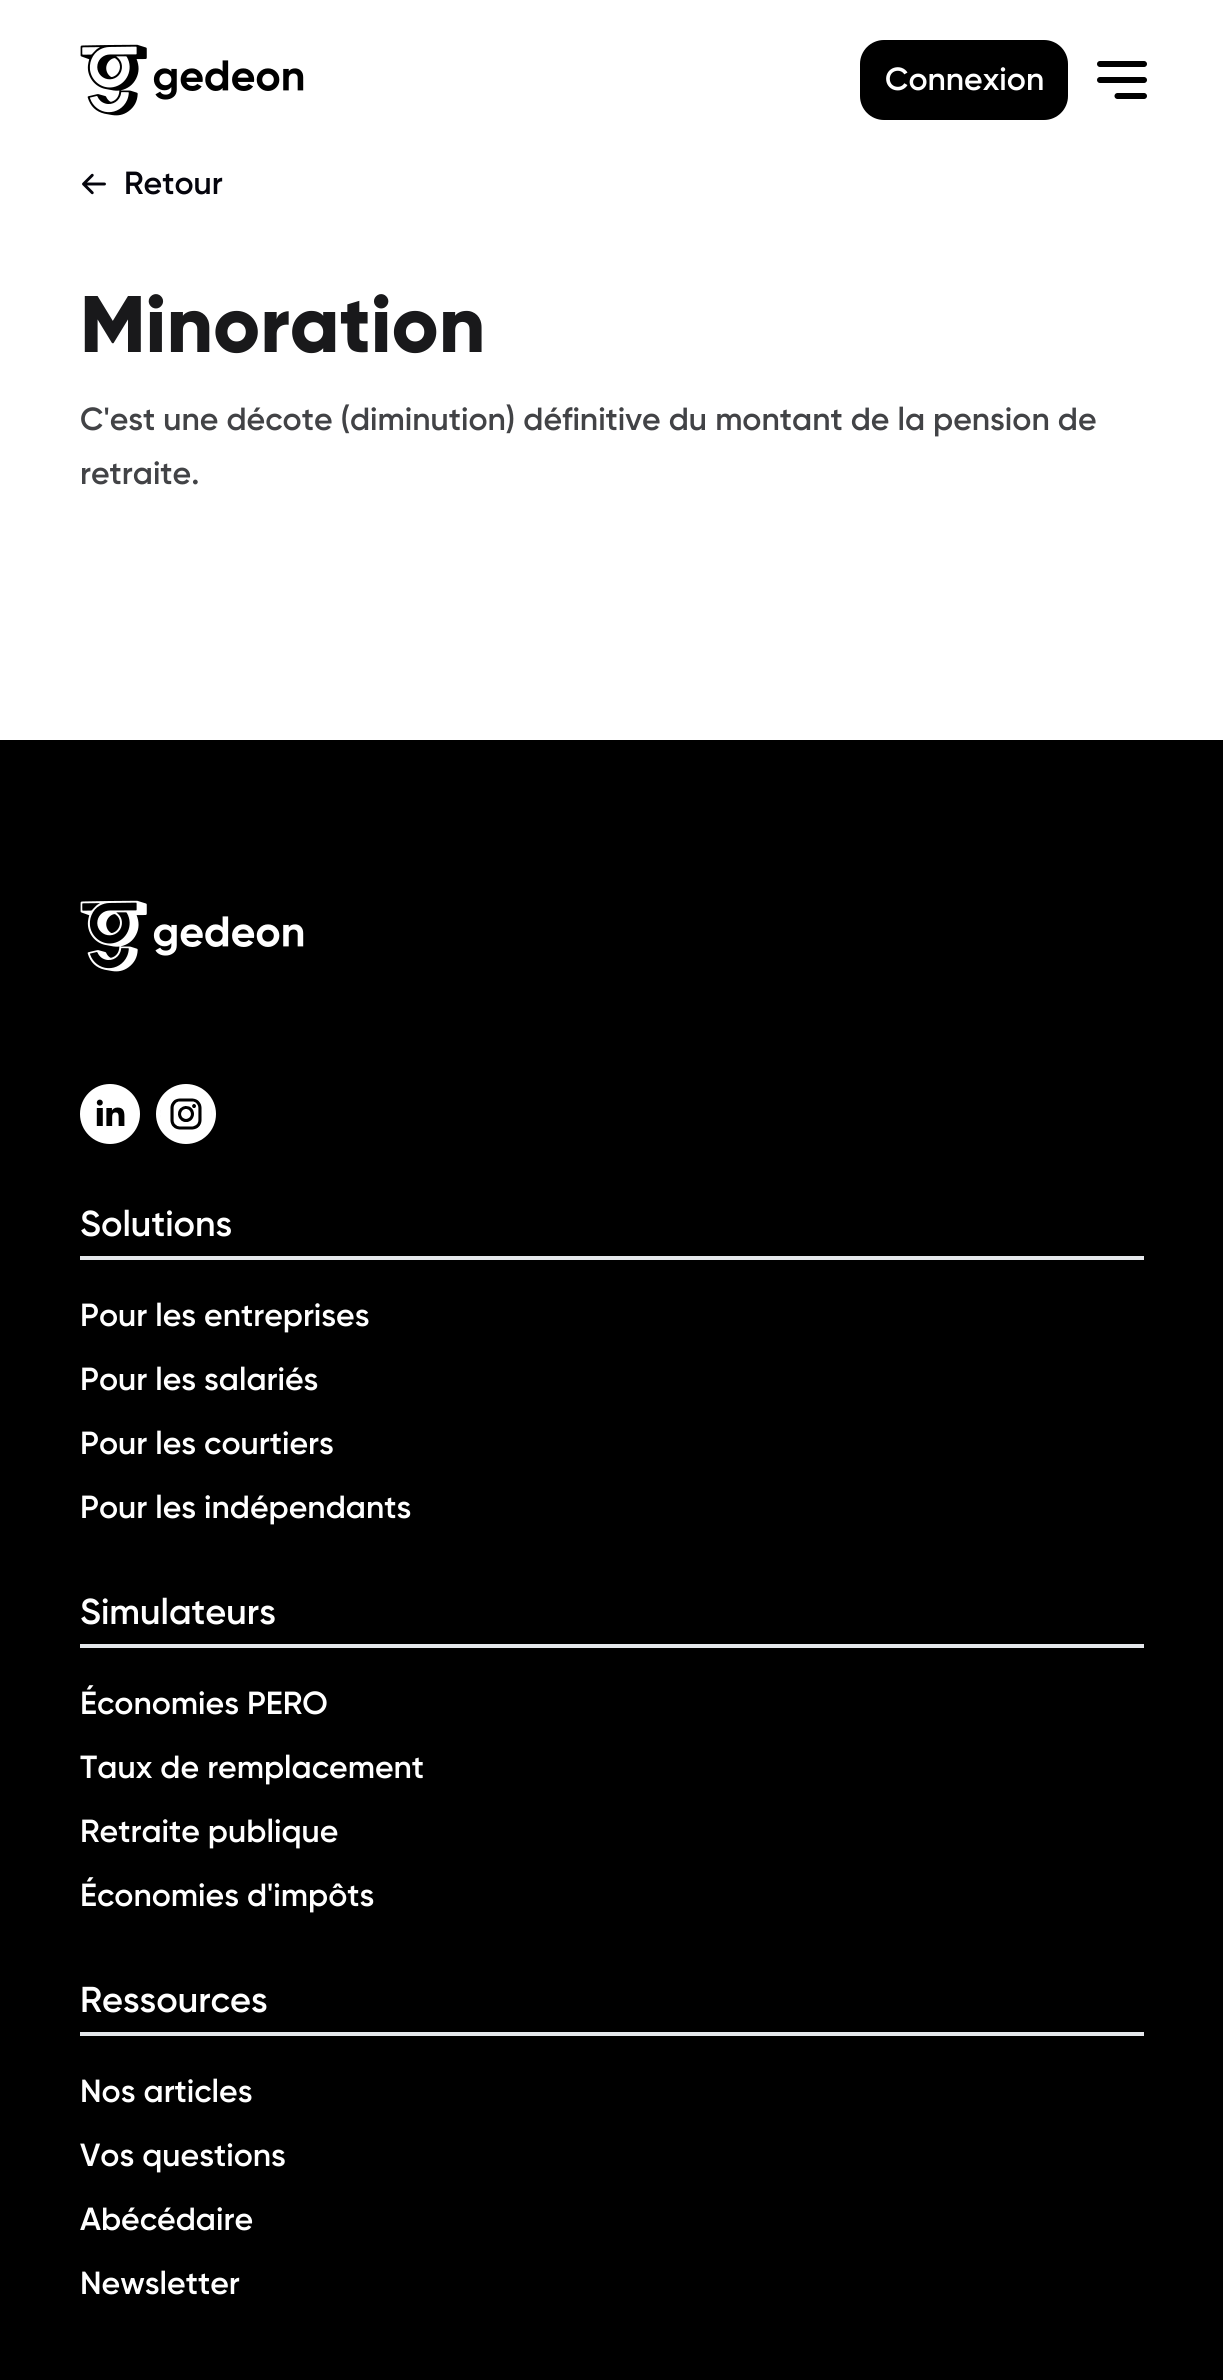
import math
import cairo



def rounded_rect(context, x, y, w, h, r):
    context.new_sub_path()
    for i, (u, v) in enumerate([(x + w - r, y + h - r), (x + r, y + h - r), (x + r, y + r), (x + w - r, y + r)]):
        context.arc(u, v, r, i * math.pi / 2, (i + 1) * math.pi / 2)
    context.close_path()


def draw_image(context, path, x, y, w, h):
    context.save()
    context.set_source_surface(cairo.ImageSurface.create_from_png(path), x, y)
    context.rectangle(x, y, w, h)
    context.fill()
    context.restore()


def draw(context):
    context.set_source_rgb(1, 1, 1)
    context.paint()
    draw_image(context, "images/1.png", 80, 44, 224, 72)
    context.set_source_rgb(0, 0, 0)
    rounded_rect(context, 860, 40, 208, 80, 24)
    context.fill()
    context.new_path()
    context.move_to(1100, 64)
    context.line_to(1144, 64)
    context.move_to(1100, 80)
    context.line_to(1144, 80)
    context.move_to(1117.5, 96)
    context.line_to(1144, 96)
    context.set_line_width(6)
    context.set_line_cap(cairo.LineCap.ROUND)
    context.stroke()
    draw_image(context, "images/2.png", 82, 173, 24, 22)
    context.rectangle(0, 740, 1223, 1640)
    context.fill()
    draw_image(context, "images/3.png", 80, 900, 224, 72)
    context.set_source_rgb(1, 1, 1)
    context.arc(110, 1114, 30, 0, 2 * math.pi)
    context.fill()
    draw_image(context, "images/4.png", 96, 1099, 29, 27)
    context.arc(186, 1114, 30, 0, 2 * math.pi)
    context.fill()
    draw_image(context, "images/5.png", 160, 1098, 52, 32)
    context.set_source_rgb(229 / 255, 231 / 255, 235 / 255)
    context.rectangle(80, 1256, 1064, 4)
    context.fill()
    context.rectangle(80, 1644, 1064, 4)
    context.fill()
    context.rectangle(80, 2032, 1064, 4)
    context.fill()
    context.select_font_face("Gilroy SemiBold")
    context.set_font_size(32)
    context.set_source_rgb(1, 1, 1)
    context.move_to(885, 90)
    context.show_text("Connexion")
    context.set_source_rgb(5 / 255, 5 / 255, 13 / 255)
    context.move_to(124, 194)
    context.show_text("Retour")
    context.select_font_face("Gilroy ExtraBold")
    context.set_font_size(80)
    context.set_source_rgb(25 / 255, 25 / 255, 27 / 255)
    context.move_to(80, 352)
    context.show_text("Minoration")
    context.select_font_face("Gilroy SemiBold")
    context.set_font_size(32)
    context.set_source_rgb(66 / 255, 67 / 255, 70 / 255)
    context.move_to(80, 430)
    context.show_text("C'est une décote (diminution) définitive du montant de la pension de")
    context.move_to(80, 484)
    context.show_text("retraite.")
    context.set_font_size(36)
    context.set_source_rgb(1, 1, 1)
    context.move_to(80, 1236)
    context.show_text("Solutions")
    context.set_font_size(32)
    context.move_to(80, 1326)
    context.show_text("Pour les entreprises")
    context.move_to(80, 1390)
    context.show_text("Pour les salariés")
    context.move_to(80, 1454)
    context.show_text("Pour les courtiers")
    context.move_to(80, 1518)
    context.show_text("Pour les indépendants")
    context.set_font_size(36)
    context.move_to(80, 1624)
    context.show_text("Simulateurs")
    context.set_font_size(32)
    context.move_to(80, 1714)
    context.show_text("Économies PERO")
    context.move_to(80, 1778)
    context.show_text("Taux de remplacement")
    context.move_to(80, 1842)
    context.show_text("Retraite publique")
    context.move_to(80, 1906)
    context.show_text("Économies d'impôts")
    context.set_font_size(36)
    context.move_to(80, 2012)
    context.show_text("Ressources")
    context.set_font_size(32)
    context.move_to(80, 2102)
    context.show_text("Nos articles")
    context.move_to(80, 2166)
    context.show_text("Vos questions")
    context.move_to(80, 2230)
    context.show_text("Abécédaire")
    context.move_to(80, 2294)
    context.show_text("Newsletter")


surface = cairo.ImageSurface(cairo.Format.RGB24, 1223, 2380)
context = cairo.Context(surface)
options = cairo.FontOptions()
options.set_hint_metrics(cairo.HintMetrics.OFF)
options.set_hint_style(cairo.HintStyle.NONE)
context.set_font_options(options)
context.set_miter_limit(4)
draw(context)
surface.write_to_png("out.png")
